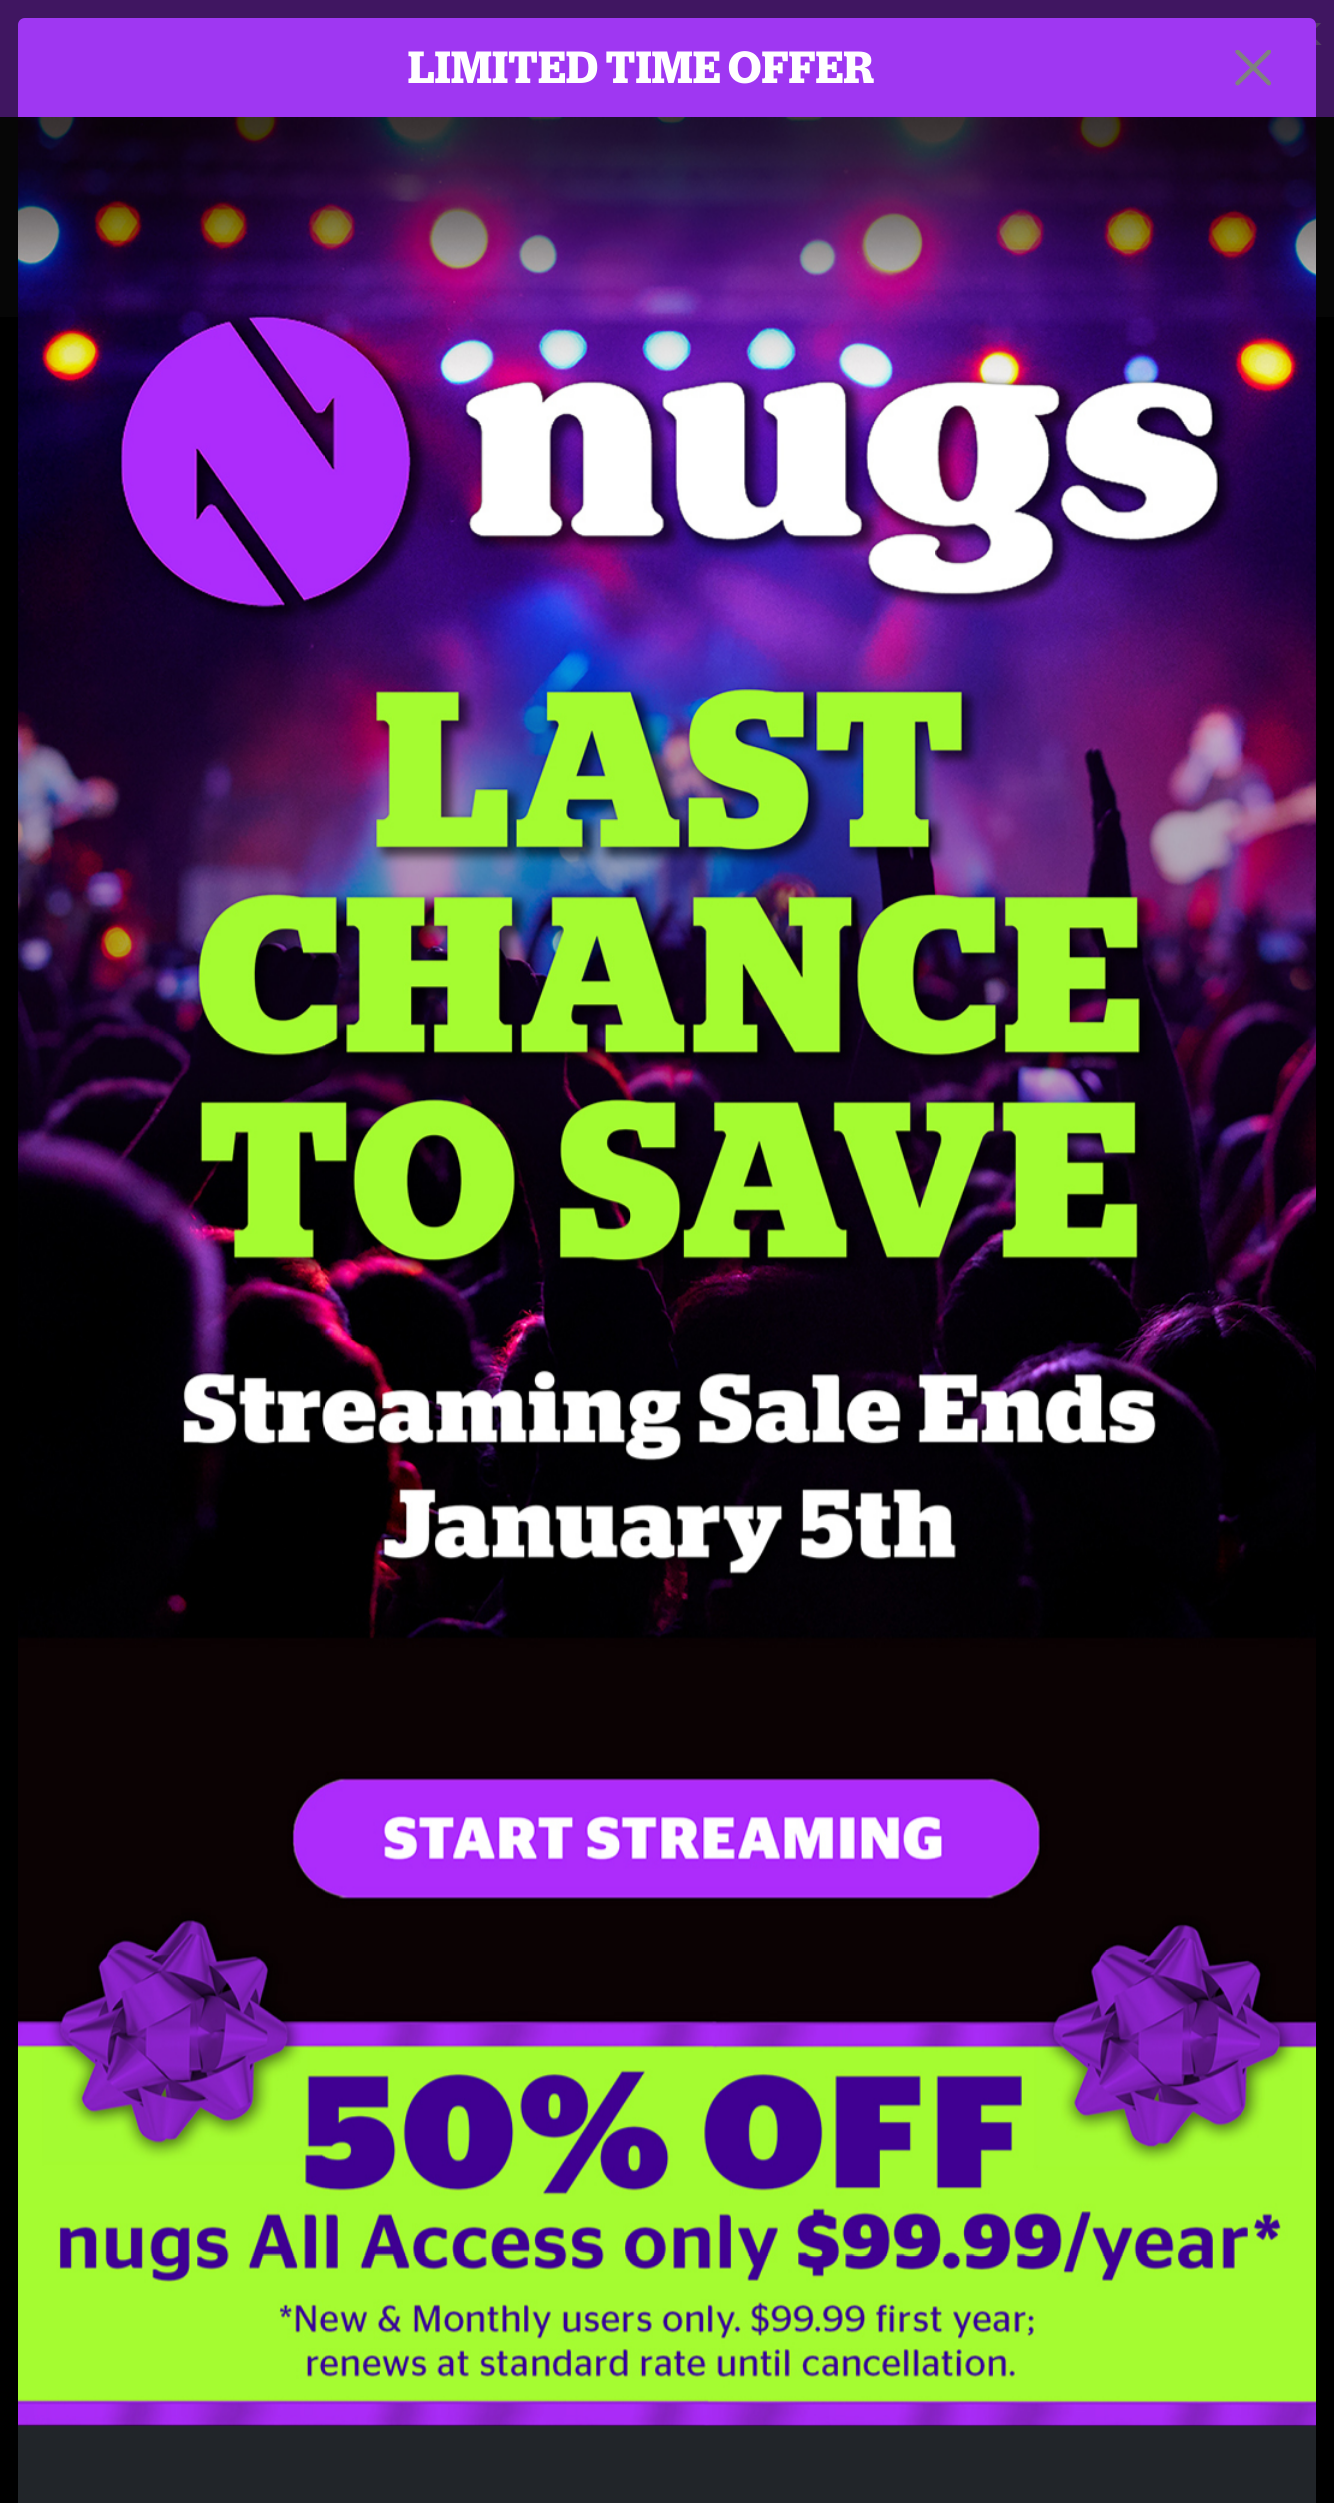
import math
import cairo



def draw_spaced(context, x, y, s, letter, word):
    context.move_to(x, y)
    for ch in s:
        context.show_text(ch)
        context.rel_move_to(letter + word * (ch == ' '), 0)


def draw_image(context, path, x, y, w, h):
    context.save()
    context.set_source_surface(cairo.ImageSurface.create_from_png(path), x, y)
    context.rectangle(x, y, w, h)
    context.fill()
    context.restore()


def draw(context):
    context.set_source_rgb(0, 0, 0)
    context.paint()
    context.set_source_rgb(64 / 255, 22 / 255, 97 / 255)
    context.rectangle(0, 0, 1334, 117)
    context.fill()
    draw_image(context, "images/1.png", 1315, 23, 7, 22)
    context.set_source_rgb(6 / 255, 6 / 255, 6 / 255)
    context.rectangle(0, 117, 1334, 200)
    context.fill()
    context.set_source_rgb(159 / 255, 55 / 255, 242 / 255)
    context.new_path()
    context.move_to(25, 18)
    context.line_to(1309, 18)
    context.curve_to(1313, 18, 1316, 21, 1316, 25)
    context.line_to(1316, 117)
    context.line_to(18, 117)
    context.line_to(18, 25)
    context.curve_to(18, 21, 21, 18, 25, 18)
    context.close_path()
    context.fill()
    draw_image(context, "images/2.png", 1235, 50, 36, 36)
    draw_image(context, "images/3.png", 18, 117, 1298, 2309)
    context.set_source_rgb(33 / 255, 37 / 255, 41 / 255)
    context.rectangle(18, 2426, 1298, 77)
    context.fill()
    context.select_font_face("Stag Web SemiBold")
    context.set_font_size(45)
    context.set_source_rgb(1, 1, 1)
    draw_spaced(context, 408, 83, "LIMITED TIME OFFER", 0.5, 0)


surface = cairo.ImageSurface(cairo.Format.RGB24, 1334, 2503)
context = cairo.Context(surface)
options = cairo.FontOptions()
options.set_hint_metrics(cairo.HintMetrics.OFF)
options.set_hint_style(cairo.HintStyle.NONE)
context.set_font_options(options)
context.set_miter_limit(4)
draw(context)
surface.write_to_png("out.png")
